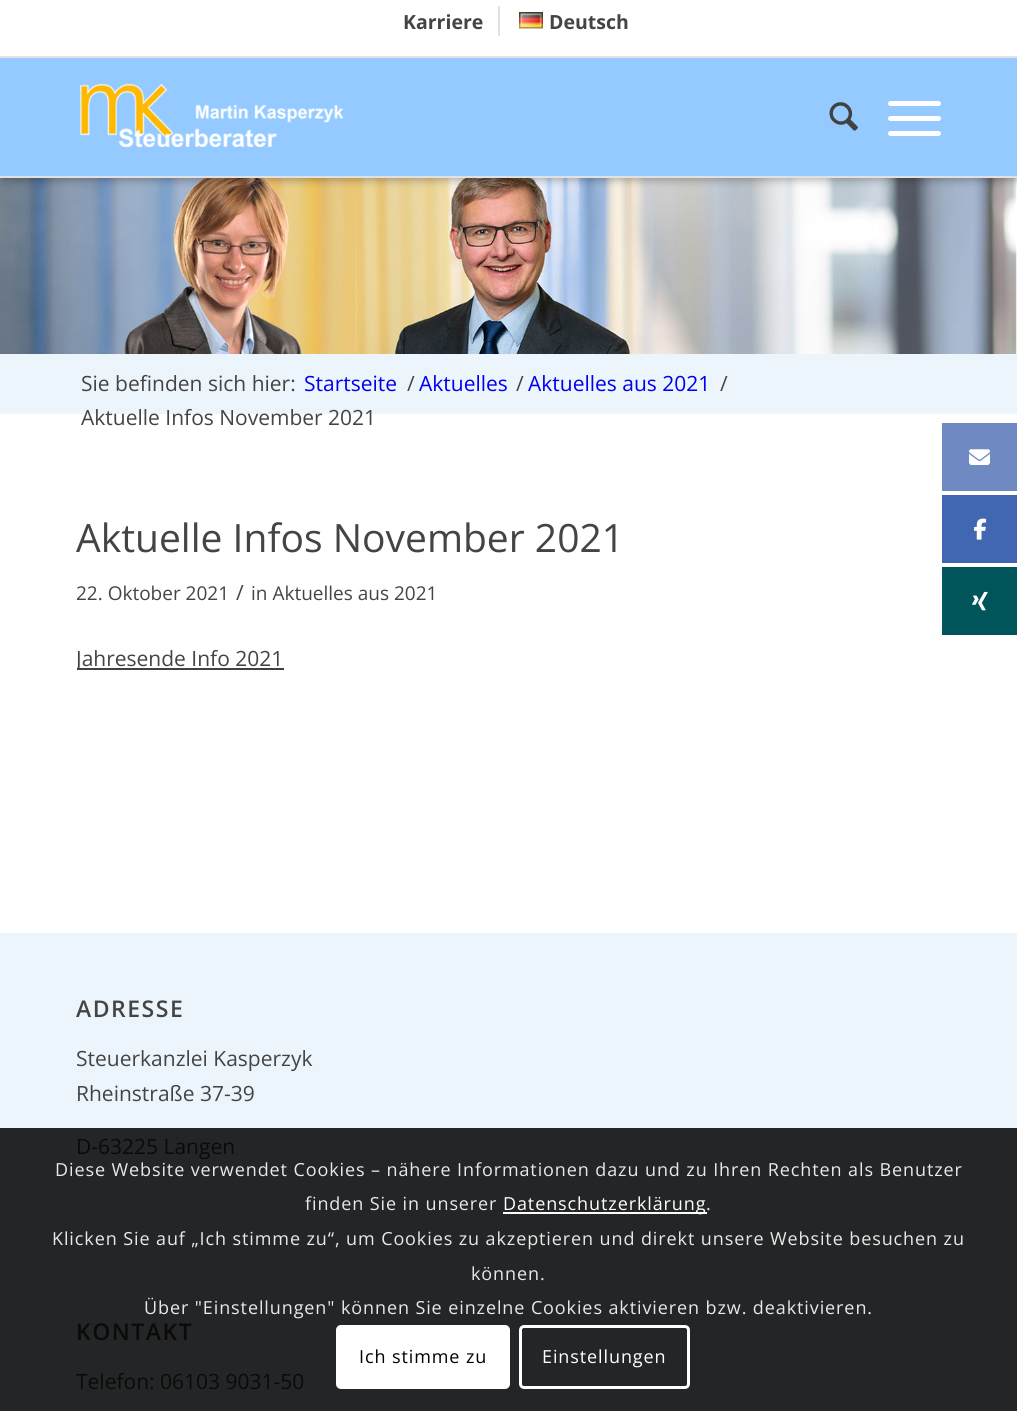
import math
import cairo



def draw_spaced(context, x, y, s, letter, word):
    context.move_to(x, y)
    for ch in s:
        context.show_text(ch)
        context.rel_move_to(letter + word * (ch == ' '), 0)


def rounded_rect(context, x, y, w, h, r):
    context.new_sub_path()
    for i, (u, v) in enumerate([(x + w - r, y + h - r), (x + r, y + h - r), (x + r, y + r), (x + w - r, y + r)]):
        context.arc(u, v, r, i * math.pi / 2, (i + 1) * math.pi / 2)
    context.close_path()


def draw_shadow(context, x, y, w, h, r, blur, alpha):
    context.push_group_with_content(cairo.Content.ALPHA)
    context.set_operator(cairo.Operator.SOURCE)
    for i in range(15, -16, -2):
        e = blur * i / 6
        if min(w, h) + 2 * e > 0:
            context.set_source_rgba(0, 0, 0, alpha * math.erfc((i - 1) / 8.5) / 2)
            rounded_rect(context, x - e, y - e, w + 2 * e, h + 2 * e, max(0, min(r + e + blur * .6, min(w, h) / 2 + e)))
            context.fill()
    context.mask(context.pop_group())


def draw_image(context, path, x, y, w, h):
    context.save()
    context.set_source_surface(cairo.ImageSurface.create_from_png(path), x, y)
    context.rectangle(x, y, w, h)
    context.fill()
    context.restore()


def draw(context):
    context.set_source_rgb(1, 1, 1)
    context.paint()
    draw_image(context, "images/4.png", 0, 178, 1017, 176)
    context.set_source_rgb(0, 0, 0)
    draw_shadow(context, 3, 3, 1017, 177, 0, 4.5, 0.3)
    context.set_source_rgb(1, 1, 1)
    context.rectangle(0, 0, 1017, 56)
    context.fill()
    context.set_source_rgb(225 / 255, 225 / 255, 225 / 255)
    context.rectangle(0, 56, 1017, 2)
    context.fill()
    context.rectangle(498, 6, 2, 30)
    context.fill()
    draw_image(context, "images/1.png", 519, 12, 24, 17)
    context.set_source_rgb(148 / 255, 202 / 255, 1)
    context.rectangle(0, 58, 1017, 118)
    context.fill()
    context.set_source_rgb(225 / 255, 225 / 255, 225 / 255)
    context.rectangle(0, 176, 1017, 2)
    context.fill()
    draw_image(context, "images/2.png", 80, 84, 264, 63)
    draw_image(context, "images/3.png", 829, 102, 29, 29)
    context.set_source_rgb(1, 1, 1)
    rounded_rect(context, 888, 116, 53, 5, 2.5)
    context.fill()
    rounded_rect(context, 888, 101, 53, 5, 2.5)
    context.fill()
    rounded_rect(context, 888, 131, 53, 5, 2.5)
    context.fill()
    context.set_source_rgb(237 / 255, 245 / 255, 252 / 255)
    context.rectangle(0, 354, 1017, 60)
    context.fill()
    context.set_source_rgb(65 / 255, 65 / 255, 65 / 255)
    context.rectangle(77, 668, 207, 2)
    context.fill()
    context.set_source_rgb(237 / 255, 245 / 255, 252 / 255)
    context.rectangle(0, 933, 1017, 195)
    context.fill()
    context.set_source_rgb(36 / 255, 37 / 255, 38 / 255)
    context.rectangle(0, 1128, 1017, 283)
    context.fill()
    context.set_source_rgb(111 / 255, 138 / 255, 194 / 255)
    context.rectangle(942, 423, 75, 68)
    context.fill()
    draw_image(context, "images/5.png", 969, 449, 21, 16)
    context.set_source_rgb(66 / 255, 103 / 255, 178 / 255)
    context.rectangle(942, 495, 75, 68)
    context.fill()
    draw_image(context, "images/6.png", 974, 518, 13, 22)
    context.set_source_rgb(0, 85 / 255, 90 / 255)
    context.rectangle(942, 567, 75, 68)
    context.fill()
    draw_image(context, "images/7.png", 972, 591, 16, 20)
    context.set_source_rgb(1, 1, 1)
    context.rectangle(503, 1212, 204, 2)
    context.fill()
    rounded_rect(context, 336, 1325, 174, 64, 5)
    context.fill()
    rounded_rect(context, 520.5, 1326.5, 168, 61, 3.5)
    context.set_line_width(3)
    context.stroke()
    context.select_font_face("Open Sans", cairo.FontSlant.NORMAL, cairo.FontWeight.BOLD)
    context.set_font_size(19.5)
    context.set_source_rgb(68 / 255, 68 / 255, 68 / 255)
    context.move_to(403, 29)
    context.show_text("Karriere")
    context.move_to(549, 29)
    context.show_text("Deutsch")
    context.select_font_face("Open Sans")
    context.set_font_size(21)
    context.move_to(81, 391)
    context.show_text("Sie befinden sich hier:")
    context.set_source_rgb(0, 0, 238 / 255)
    context.move_to(304, 391)
    context.show_text("Startseite")
    context.set_source_rgb(68 / 255, 68 / 255, 68 / 255)
    context.move_to(407, 391)
    context.show_text("/")
    context.set_source_rgb(0, 0, 238 / 255)
    context.move_to(419, 391)
    context.show_text("Aktuelles")
    context.set_source_rgb(68 / 255, 68 / 255, 68 / 255)
    context.move_to(516, 391)
    context.show_text("/")
    context.set_source_rgb(0, 0, 238 / 255)
    context.move_to(528, 391)
    context.show_text("Aktuelles aus 2021")
    context.set_source_rgb(68 / 255, 68 / 255, 68 / 255)
    context.move_to(720, 391)
    context.show_text("/")
    context.move_to(81, 425)
    context.show_text("Aktuelle Infos November 2021")
    context.set_font_size(39)
    context.move_to(76, 552)
    context.show_text("Aktuelle Infos November 2021")
    context.set_font_size(19)
    context.move_to(76, 600)
    context.show_text("22. Oktober 2021")
    context.set_font_size(21)
    context.move_to(236, 600)
    context.show_text("/")
    context.set_font_size(19)
    context.move_to(251, 600)
    context.show_text("in Aktuelles aus 2021")
    context.save()
    context.rectangle(77, 510, 864, 318)
    context.clip()
    context.set_font_size(21)
    context.move_to(76, 666)
    context.show_text("Jahresende Info 2021")
    context.restore()
    context.select_font_face("Open Sans SemiBold")
    context.set_font_size(23)
    draw_spaced(context, 76, 1017, "ADRESSE", 1.5, 0)
    context.select_font_face("Open Sans")
    context.set_font_size(21)
    context.move_to(76, 1066)
    context.show_text("Steuerkanzlei Kasperzyk")
    context.move_to(76, 1101)
    context.show_text("Rheinstraße 37-39")
    context.set_source_rgb(10 / 255, 10 / 255, 10 / 255)
    context.move_to(76, 1154)
    context.show_text("D-63225 Langen")
    context.select_font_face("Open Sans SemiBold")
    context.set_font_size(23)
    draw_spaced(context, 76, 1340, "KONTAKT", 1.5, 0)
    context.select_font_face("Open Sans")
    context.set_font_size(21)
    context.move_to(76, 1389)
    context.show_text("Telefon: 06103 9031-50")
    context.set_font_size(18)
    context.set_source_rgb(233 / 255, 233 / 255, 233 / 255)
    draw_spaced(context, 55, 1176, "Diese Website verwendet Cookies – nähere Informationen dazu und zu Ihren Rechten als Benutzer", 0.9, 0)
    draw_spaced(context, 305, 1210, "finden Sie in unserer", 0.9, 0)
    context.set_source_rgb(1, 1, 1)
    draw_spaced(context, 503, 1210, "Datenschutzerklärung", 0.9, 0)
    context.set_source_rgb(233 / 255, 233 / 255, 233 / 255)
    draw_spaced(context, 706, 1210, ".", 0.9, 0)
    draw_spaced(context, 52, 1245, "Klicken Sie auf „Ich stimme zu“, um Cookies zu akzeptieren und direkt unsere Website besuchen zu", 0.9, 0)
    draw_spaced(context, 471, 1280, "können.", 0.9, 0)
    draw_spaced(context, 144, 1314, "Über \"Einstellungen\" können Sie einzelne Cookies aktivieren bzw. deaktivieren.", 0.9, 0)
    context.set_source_rgb(0, 0, 0)
    draw_spaced(context, 359, 1363, "Ich stimme zu", 0.9, 0)
    context.set_source_rgb(1, 1, 1)
    draw_spaced(context, 542, 1363, "Einstellungen", 0.9, 0)


surface = cairo.ImageSurface(cairo.Format.RGB24, 1017, 1411)
context = cairo.Context(surface)
options = cairo.FontOptions()
options.set_hint_metrics(cairo.HintMetrics.OFF)
options.set_hint_style(cairo.HintStyle.NONE)
context.set_font_options(options)
context.set_miter_limit(4)
draw(context)
surface.write_to_png("out.png")
